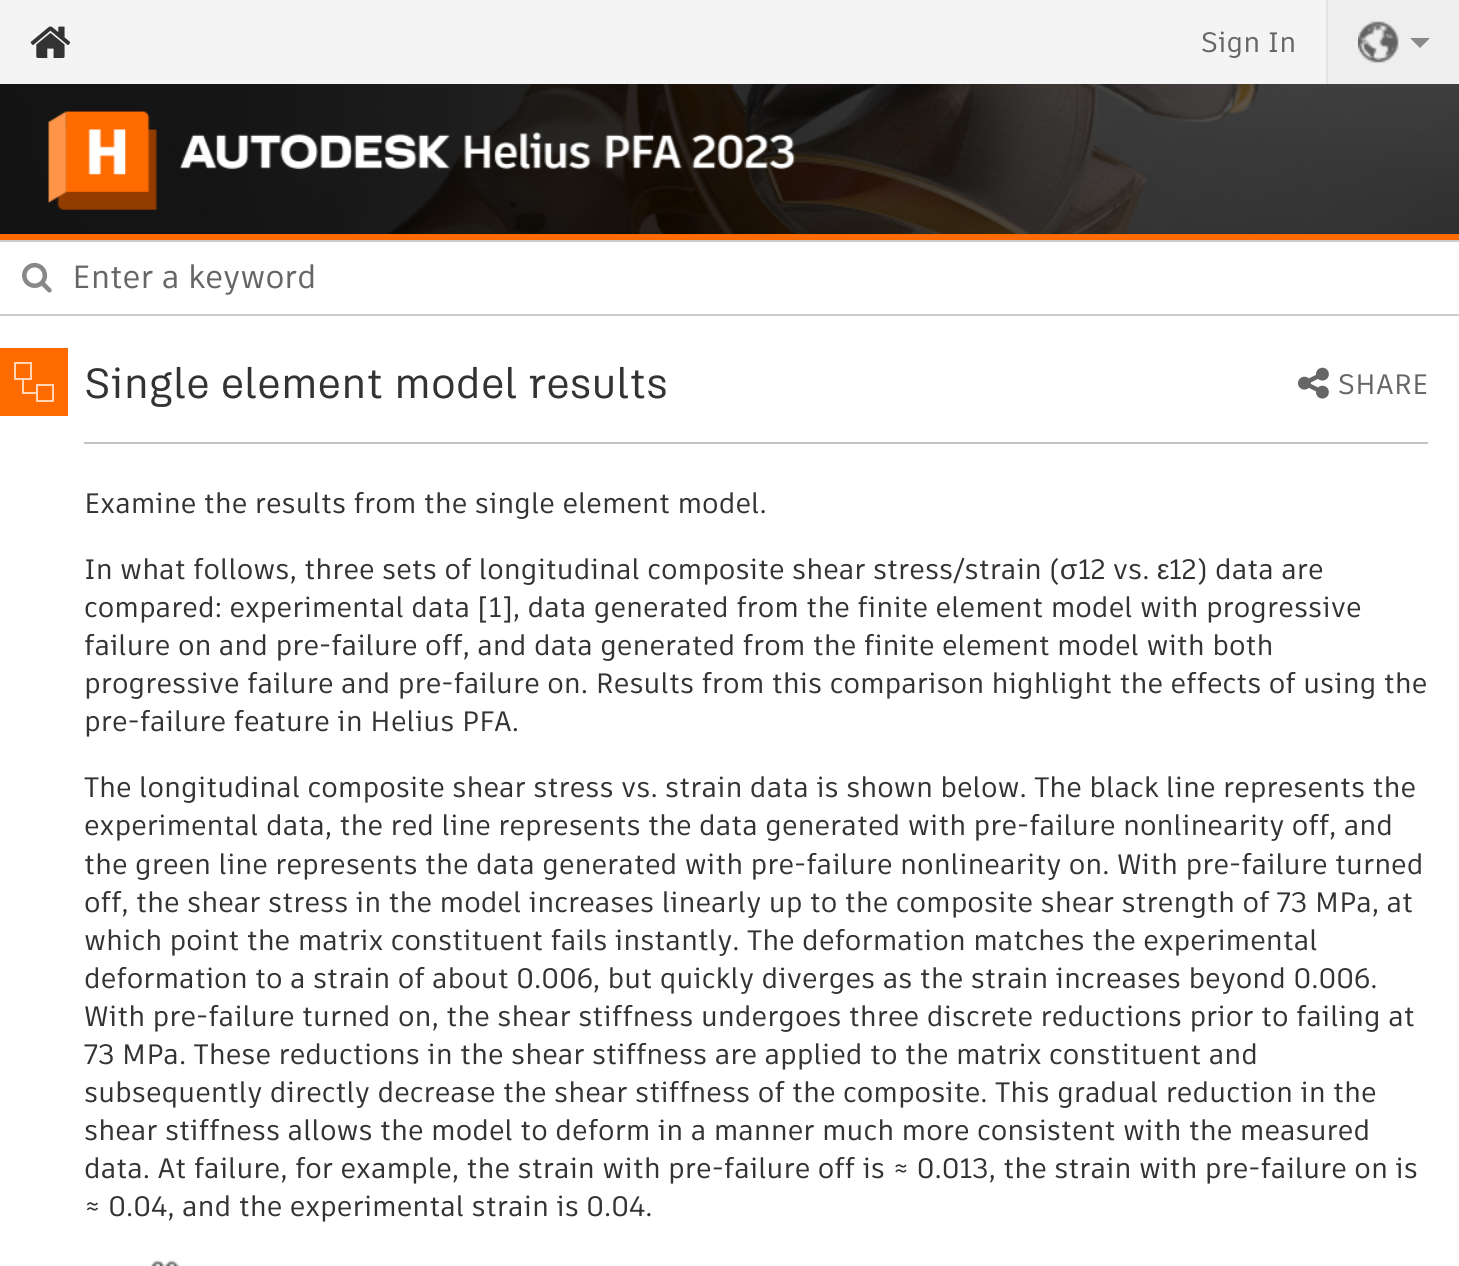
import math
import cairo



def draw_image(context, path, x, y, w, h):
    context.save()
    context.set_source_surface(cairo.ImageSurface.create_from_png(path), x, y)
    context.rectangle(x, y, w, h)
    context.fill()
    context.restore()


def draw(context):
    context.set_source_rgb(1, 1, 1)
    context.paint()
    context.set_source_rgb(244 / 255, 244 / 255, 244 / 255)
    context.rectangle(0, 0, 1326, 84)
    context.fill()
    draw_image(context, "images/1.png", 30, 26, 41, 32)
    context.set_source_rgb(238 / 255, 238 / 255, 238 / 255)
    context.rectangle(1328, 0, 131, 84)
    context.fill()
    context.set_source_rgb(228 / 255, 228 / 255, 228 / 255)
    context.rectangle(1326, 0, 2, 84)
    context.fill()
    draw_image(context, "images/2.png", 1358, 21, 41, 42)
    context.set_source_rgb(136 / 255, 136 / 255, 136 / 255)
    context.new_path()
    context.move_to(1410, 38)
    context.line_to(1430, 38)
    context.line_to(1420, 48)
    context.close_path()
    context.fill()
    draw_image(context, "images/3.png", 0, 84, 1459, 150)
    context.set_source_rgb(1, 107 / 255, 0)
    context.rectangle(0, 234, 1459, 6)
    context.fill()
    draw_image(context, "images/4.png", 48, 111, 747, 99)
    draw_image(context, "images/5.png", 22, 262, 30, 31)
    context.set_source_rgb(204 / 255, 204 / 255, 204 / 255)
    context.rectangle(0, 240, 1459, 2)
    context.fill()
    context.rectangle(0, 314, 1459, 2)
    context.fill()
    context.set_source_rgb(1, 107 / 255, 0)
    context.rectangle(0, 348, 68, 68)
    context.fill()
    context.new_path()
    context.move_to(23, 379)
    context.line_to(15, 379)
    context.line_to(15, 363)
    context.line_to(31, 363)
    context.line_to(31, 379)
    context.line_to(23, 379)
    context.line_to(23, 393)
    context.line_to(37, 393)
    context.line_to(37, 401)
    context.line_to(53, 401)
    context.line_to(53, 385)
    context.line_to(37, 385)
    context.line_to(37, 393)
    context.set_source_rgb(1, 214 / 255, 184 / 255)
    context.stroke()
    context.set_source_rgb(194 / 255, 194 / 255, 194 / 255)
    context.rectangle(84, 442, 1344, 2)
    context.fill()
    draw_image(context, "images/6.png", 151, 1259, 28, 7)
    draw_image(context, "images/7.png", 1298, 367, 31, 32)
    context.select_font_face("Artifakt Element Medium")
    context.set_font_size(28)
    context.set_source_rgb(102 / 255, 102 / 255, 102 / 255)
    context.move_to(1201, 52)
    context.show_text("Sign In")
    context.set_font_size(32)
    context.move_to(72, 288)
    context.show_text("Enter a keyword")
    context.select_font_face("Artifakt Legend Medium")
    context.set_font_size(42)
    context.set_source_rgb(51 / 255, 51 / 255, 51 / 255)
    context.move_to(84, 398)
    context.show_text("Single element model results")
    context.select_font_face("Artifakt Element Medium")
    context.set_font_size(28)
    context.move_to(84, 513)
    context.show_text("Examine the results from the single element model.")
    context.move_to(84, 579)
    context.show_text("In what follows, three sets of longitudinal composite shear stress/strain (")
    context.select_font_face("Liberation Sans")
    context.move_to(1060, 579)
    context.show_text("σ")
    context.select_font_face("Artifakt Element Medium")
    context.move_to(1078, 579)
    context.show_text("12 vs.")
    context.select_font_face("Liberation Sans")
    context.move_to(1157, 579)
    context.show_text("ε")
    context.select_font_face("Artifakt Element Medium")
    context.move_to(1169, 579)
    context.show_text("12) data are")
    context.move_to(84, 617)
    context.show_text("compared: experimental data [1], data generated from the finite element model with progressive")
    context.move_to(84, 655)
    context.show_text("failure on and pre-failure off, and data generated from the finite element model with both")
    context.move_to(84, 693)
    context.show_text("progressive failure and pre-failure on. Results from this comparison highlight the effects of using the")
    context.move_to(84, 731)
    context.show_text("pre-failure feature in Helius PFA.")
    context.move_to(84, 797)
    context.show_text("The longitudinal composite shear stress vs. strain data is shown below. The black line represents the")
    context.move_to(84, 835)
    context.show_text("experimental data, the red line represents the data generated with pre-failure nonlinearity off, and")
    context.move_to(84, 874)
    context.show_text("the green line represents the data generated with pre-failure nonlinearity on. With pre-failure turned")
    context.move_to(84, 912)
    context.show_text("off, the shear stress in the model increases linearly up to the composite shear strength of 73 MPa, at")
    context.move_to(84, 950)
    context.show_text("which point the matrix constituent fails instantly. The deformation matches the experimental")
    context.move_to(84, 988)
    context.show_text("deformation to a strain of about 0.006, but quickly diverges as the strain increases beyond 0.006.")
    context.move_to(84, 1026)
    context.show_text("With pre-failure turned on, the shear stiffness undergoes three discrete reductions prior to failing at")
    context.move_to(84, 1064)
    context.show_text("73 MPa. These reductions in the shear stiffness are applied to the matrix constituent and")
    context.move_to(84, 1102)
    context.show_text("subsequently directly decrease the shear stiffness of the composite. This gradual reduction in the")
    context.move_to(84, 1140)
    context.show_text("shear stiffness allows the model to deform in a manner much more consistent with the measured")
    context.move_to(84, 1178)
    context.show_text("data. At failure, for example, the strain with pre-failure off is ≈ 0.013, the strain with pre-failure on is")
    context.move_to(84, 1216)
    context.show_text("≈ 0.04, and the experimental strain is 0.04.")
    context.set_source_rgb(102 / 255, 102 / 255, 102 / 255)
    context.move_to(1338, 394)
    context.show_text("SHARE")


surface = cairo.ImageSurface(cairo.Format.RGB24, 1459, 1266)
context = cairo.Context(surface)
options = cairo.FontOptions()
options.set_hint_metrics(cairo.HintMetrics.OFF)
options.set_hint_style(cairo.HintStyle.NONE)
context.set_font_options(options)
context.set_miter_limit(4)
draw(context)
surface.write_to_png("out.png")
